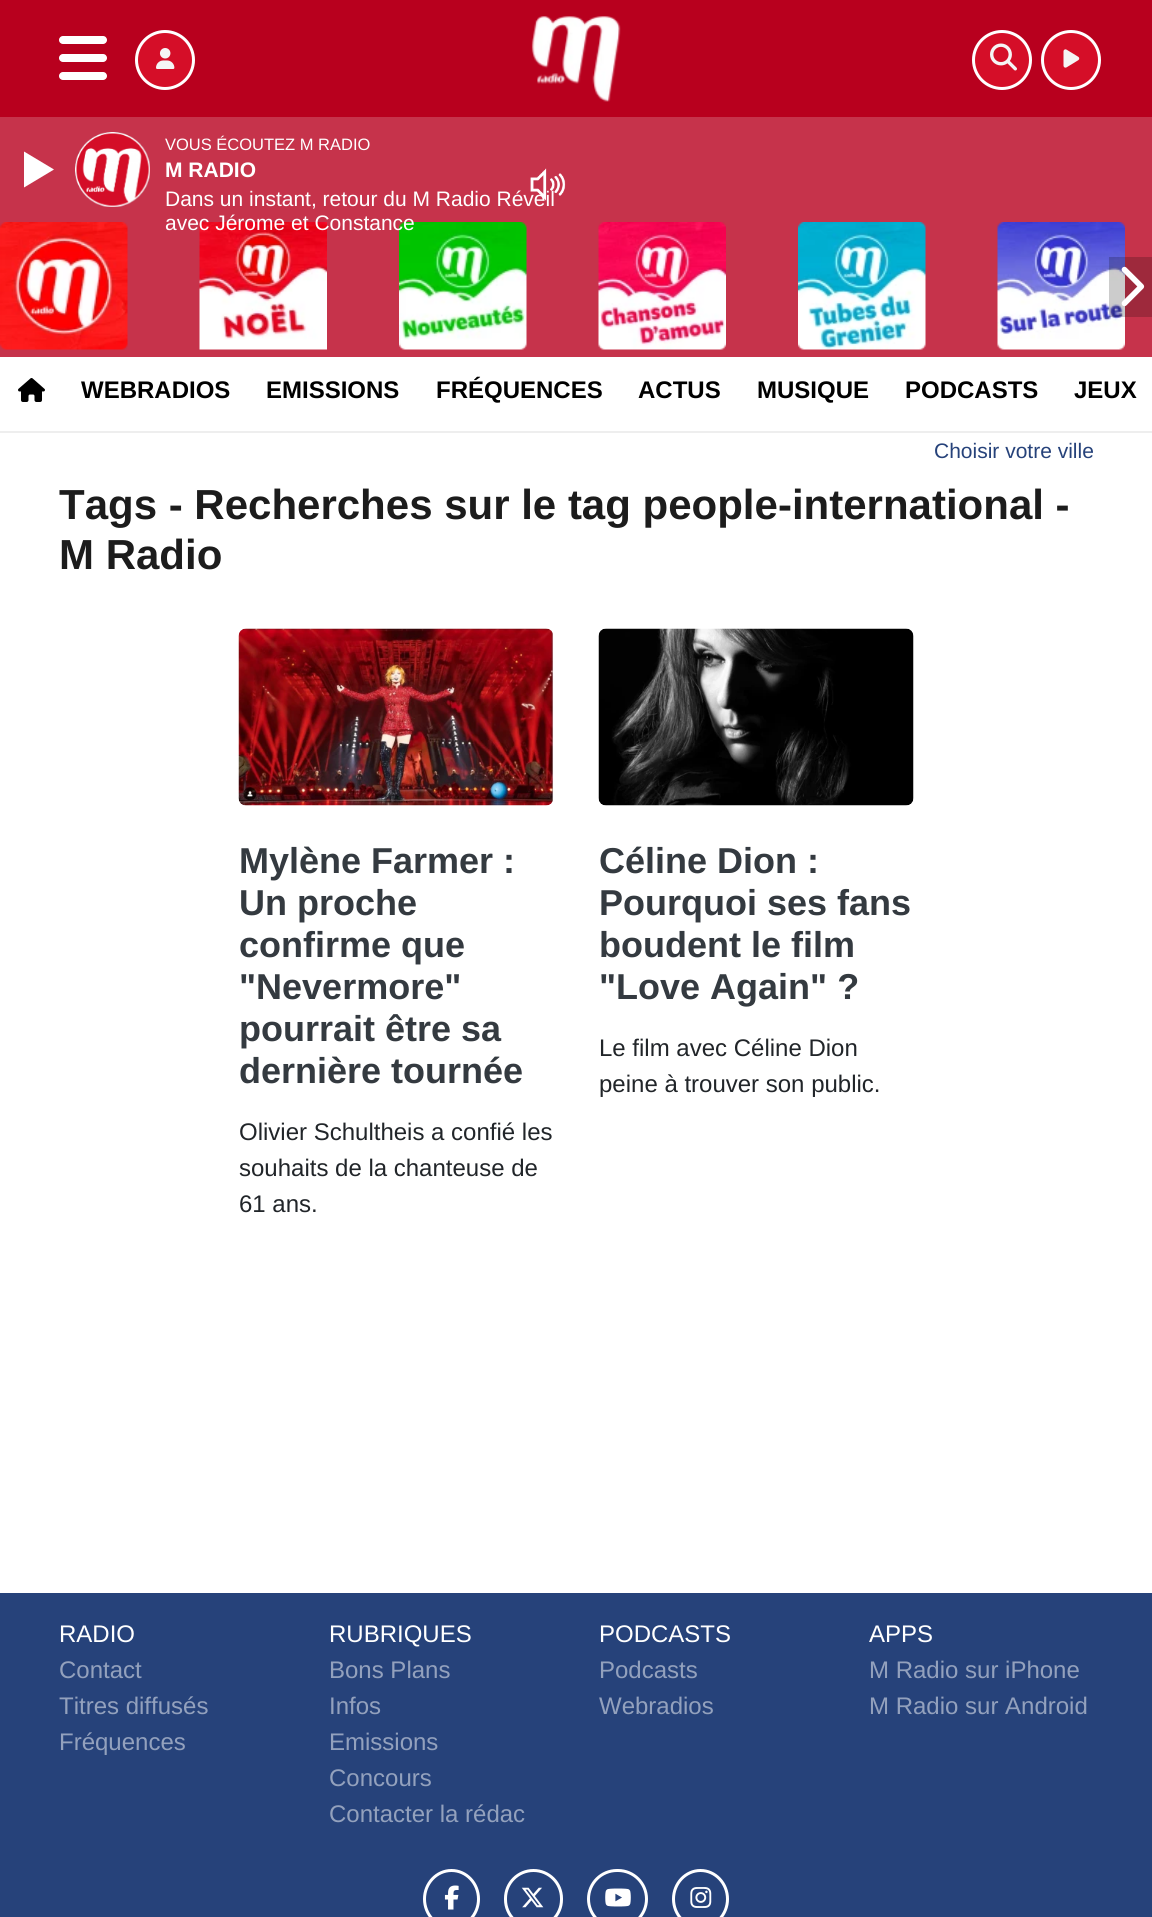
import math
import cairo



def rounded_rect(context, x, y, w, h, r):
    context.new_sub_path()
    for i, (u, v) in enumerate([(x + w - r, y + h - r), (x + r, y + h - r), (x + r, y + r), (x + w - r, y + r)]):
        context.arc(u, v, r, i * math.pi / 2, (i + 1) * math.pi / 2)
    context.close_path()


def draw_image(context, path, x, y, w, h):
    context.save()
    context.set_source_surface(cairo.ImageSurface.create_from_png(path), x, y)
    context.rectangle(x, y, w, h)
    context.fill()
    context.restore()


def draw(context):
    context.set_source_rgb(1, 1, 1)
    context.paint()
    context.set_source_rgb(198 / 255, 51 / 255, 75 / 255)
    context.rectangle(0, 117, 1152, 240)
    context.fill()
    draw_image(context, "images/1.png", 75, 132, 75, 75)
    context.set_source_rgb(1, 1, 1)
    context.new_path()
    context.move_to(24, 187.5)
    context.line_to(24, 151.5)
    context.line_to(54, 169.5)
    context.close_path()
    context.fill()
    draw_image(context, "images/3.png", 0, 222, 128, 128)
    draw_image(context, "images/4.png", 199, 222, 128, 128)
    draw_image(context, "images/5.png", 399, 222, 128, 128)
    draw_image(context, "images/6.png", 598, 222, 128, 128)
    draw_image(context, "images/7.png", 798, 222, 128, 128)
    draw_image(context, "images/8.png", 997, 222, 128, 128)
    context.set_source_rgba(0, 0, 0, 0.2)
    context.rectangle(1109, 257, 43, 60)
    context.fill()
    draw_image(context, "images/9.png", 1121, 266, 24, 41)
    context.set_source_rgb(184 / 255, 0, 30 / 255)
    context.rectangle(0, 0, 1152, 117)
    context.fill()
    context.set_source_rgb(1, 1, 1)
    rounded_rect(context, 59, 36, 48, 8, 4)
    context.fill()
    rounded_rect(context, 59, 54, 48, 8, 4)
    context.fill()
    rounded_rect(context, 59, 72, 48, 8, 4)
    context.fill()
    context.set_source_rgb(213 / 255, 14 / 255, 40 / 255)
    context.arc(165, 60, 28.5, 0, 2 * math.pi)
    context.fill_preserve()
    context.set_source_rgb(1, 1, 1)
    context.set_line_width(3)
    context.stroke()
    draw_image(context, "images/10.png", 156, 48, 19, 21)
    draw_image(context, "images/11.png", 531, 16, 90, 86)
    context.set_source_rgb(213 / 255, 14 / 255, 40 / 255)
    context.arc(1002, 60, 28.5, 0, 2 * math.pi)
    context.fill_preserve()
    context.set_source_rgb(1, 1, 1)
    context.stroke()
    draw_image(context, "images/12.png", 990, 43, 27, 28)
    context.set_source_rgb(213 / 255, 14 / 255, 40 / 255)
    context.arc(1071, 60, 28.5, 0, 2 * math.pi)
    context.fill_preserve()
    context.set_source_rgb(1, 1, 1)
    context.stroke()
    draw_image(context, "images/13.png", 1063, 49, 17, 19)
    context.set_source_rgb(238 / 255, 238 / 255, 238 / 255)
    context.rectangle(0, 431, 1152, 2)
    context.fill()
    draw_image(context, "images/14.png", 18, 378, 27, 24)
    draw_image(context, "images/15.png", 238, 628, 316, 178)
    draw_image(context, "images/16.png", 598, 628, 316, 178)
    context.set_source_rgb(38 / 255, 66 / 255, 122 / 255)
    context.rectangle(0, 1593, 1152, 324)
    context.fill()
    context.new_path()
    context.move_to(451.5, 1870.5)
    context.curve_to(466.5, 1870.5, 478.5, 1883.5, 478.5, 1899)
    context.curve_to(478.5, 1914.5, 466.5, 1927.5, 451.5, 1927.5)
    context.curve_to(436.5, 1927.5, 424.5, 1914.5, 424.5, 1899)
    context.curve_to(424.5, 1883.5, 436.5, 1870.5, 451.5, 1870.5)
    context.close_path()
    context.set_source_rgb(1, 1, 1)
    context.stroke()
    draw_image(context, "images/17.png", 444, 1885, 15, 25)
    rounded_rect(context, 505.5, 1870.5, 56, 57, 28)
    context.stroke()
    draw_image(context, "images/18.png", 521, 1887, 23, 21)
    rounded_rect(context, 588.5, 1870.5, 58, 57, 28.5)
    context.stroke()
    draw_image(context, "images/19.png", 605, 1888, 26, 19)
    context.new_path()
    context.move_to(700.5, 1870.5)
    context.curve_to(715.5, 1870.5, 727.5, 1883.5, 727.5, 1899)
    context.curve_to(727.5, 1914.5, 715.5, 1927.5, 700.5, 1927.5)
    context.curve_to(685.5, 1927.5, 673.5, 1914.5, 673.5, 1899)
    context.curve_to(673.5, 1883.5, 685.5, 1870.5, 700.5, 1870.5)
    context.close_path()
    context.stroke()
    draw_image(context, "images/20.png", 690, 1887, 22, 21)
    context.select_font_face("Liberation Sans")
    context.set_font_size(16.5)
    context.move_to(165, 150)
    context.show_text("VOUS ÉCOUTEZ M RADIO")
    context.select_font_face("Liberation Sans", cairo.FontSlant.NORMAL, cairo.FontWeight.BOLD)
    context.set_font_size(21)
    context.move_to(165, 177)
    context.show_text("M RADIO")
    context.select_font_face("Liberation Sans")
    context.move_to(165, 206)
    context.show_text("Dans un instant, retour du M Radio Réveil")
    context.move_to(165, 230)
    context.show_text("avec Jérome et Constance")
    draw_image(context, "images/2.png", 530, 168, 36, 33)
    context.select_font_face("Liberation Sans", cairo.FontSlant.NORMAL, cairo.FontWeight.BOLD)
    context.set_font_size(24)
    context.set_source_rgb(0, 0, 0)
    context.move_to(81, 398)
    context.show_text("WEBRADIOS")
    context.move_to(266, 398)
    context.show_text("EMISSIONS")
    context.move_to(436, 398)
    context.show_text("FRÉQUENCES")
    context.move_to(638, 398)
    context.show_text("ACTUS")
    context.move_to(757, 398)
    context.show_text("MUSIQUE")
    context.move_to(905, 398)
    context.show_text("PODCASTS")
    context.move_to(1074, 398)
    context.show_text("JEUX")
    context.select_font_face("Liberation Sans")
    context.set_font_size(21)
    context.set_source_rgb(38 / 255, 66 / 255, 122 / 255)
    context.move_to(934, 458)
    context.show_text("Choisir votre ville")
    context.select_font_face("Liberation Sans", cairo.FontSlant.NORMAL, cairo.FontWeight.BOLD)
    context.set_font_size(42)
    context.set_source_rgb(28 / 255, 28 / 255, 28 / 255)
    context.move_to(59, 519)
    context.show_text("Tags - Recherches sur le tag people-international -")
    context.move_to(59, 569)
    context.show_text("M Radio")
    context.set_font_size(36)
    context.set_source_rgb(52 / 255, 58 / 255, 64 / 255)
    context.move_to(239, 873)
    context.show_text("Mylène Farmer :")
    context.move_to(239, 915)
    context.show_text("Un proche")
    context.move_to(239, 957)
    context.show_text("confirme que")
    context.move_to(239, 999)
    context.show_text("\"Nevermore\"")
    context.move_to(239, 1041)
    context.show_text("pourrait être sa")
    context.move_to(239, 1083)
    context.show_text("dernière tournée")
    context.select_font_face("Liberation Sans")
    context.set_font_size(24)
    context.set_source_rgb(33 / 255, 37 / 255, 41 / 255)
    context.move_to(239, 1140)
    context.show_text("Olivier Schultheis a confié les")
    context.move_to(239, 1176)
    context.show_text("souhaits de la chanteuse de")
    context.move_to(239, 1212)
    context.show_text("61 ans.")
    context.select_font_face("Liberation Sans", cairo.FontSlant.NORMAL, cairo.FontWeight.BOLD)
    context.set_font_size(36)
    context.set_source_rgb(52 / 255, 58 / 255, 64 / 255)
    context.move_to(599, 873)
    context.show_text("Céline Dion :")
    context.move_to(599, 915)
    context.show_text("Pourquoi ses fans")
    context.move_to(599, 957)
    context.show_text("boudent le film")
    context.move_to(599, 999)
    context.show_text("\"Love Again\" ?")
    context.select_font_face("Liberation Sans")
    context.set_font_size(24)
    context.set_source_rgb(33 / 255, 37 / 255, 41 / 255)
    context.move_to(599, 1056)
    context.show_text("Le film avec Céline Dion")
    context.move_to(599, 1092)
    context.show_text("peine à trouver son public.")
    context.set_source_rgb(1, 1, 1)
    context.move_to(59, 1642)
    context.show_text("RADIO")
    context.set_source_rgb(147 / 255, 161 / 255, 189 / 255)
    context.move_to(59, 1678)
    context.show_text("Contact")
    context.move_to(59, 1714)
    context.show_text("Titres diffusés")
    context.move_to(59, 1750)
    context.show_text("Fréquences")
    context.set_source_rgb(1, 1, 1)
    context.move_to(329, 1642)
    context.show_text("RUBRIQUES")
    context.set_source_rgb(147 / 255, 161 / 255, 189 / 255)
    context.move_to(329, 1678)
    context.show_text("Bons Plans")
    context.move_to(329, 1714)
    context.show_text("Infos")
    context.move_to(329, 1750)
    context.show_text("Emissions")
    context.move_to(329, 1786)
    context.show_text("Concours")
    context.move_to(329, 1822)
    context.show_text("Contacter la rédac")
    context.set_source_rgb(1, 1, 1)
    context.move_to(599, 1642)
    context.show_text("PODCASTS")
    context.set_source_rgb(147 / 255, 161 / 255, 189 / 255)
    context.move_to(599, 1678)
    context.show_text("Podcasts")
    context.move_to(599, 1714)
    context.show_text("Webradios")
    context.set_source_rgb(1, 1, 1)
    context.move_to(869, 1642)
    context.show_text("APPS")
    context.set_source_rgb(147 / 255, 161 / 255, 189 / 255)
    context.move_to(869, 1678)
    context.show_text("M Radio sur iPhone")
    context.move_to(869, 1714)
    context.show_text("M Radio sur Android")


surface = cairo.ImageSurface(cairo.Format.RGB24, 1152, 1917)
context = cairo.Context(surface)
options = cairo.FontOptions()
options.set_hint_metrics(cairo.HintMetrics.OFF)
options.set_hint_style(cairo.HintStyle.NONE)
context.set_font_options(options)
context.set_miter_limit(4)
draw(context)
surface.write_to_png("out.png")
